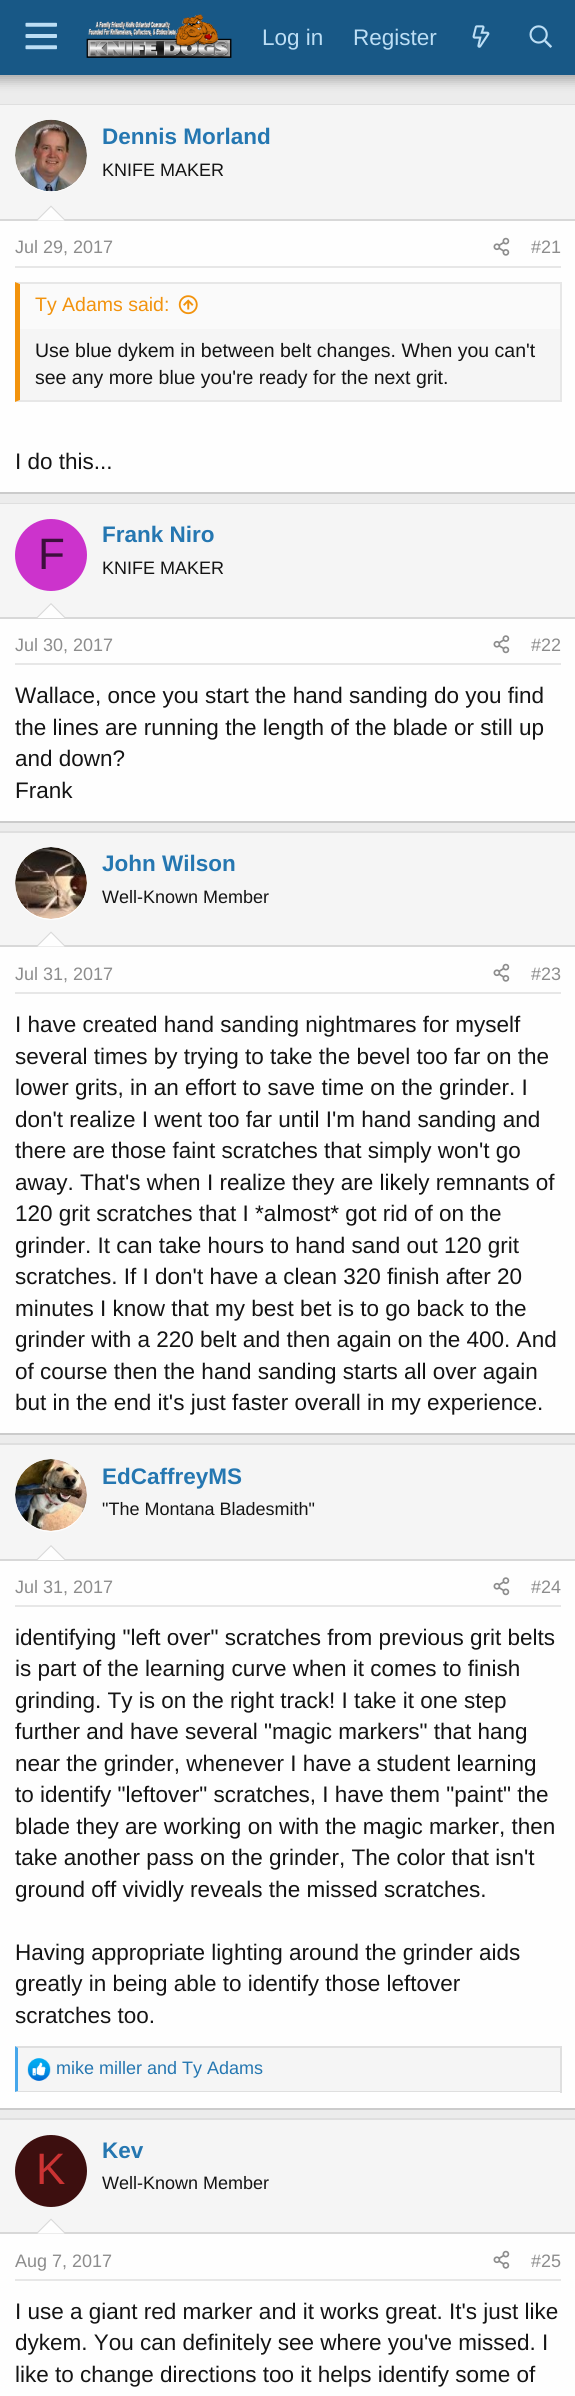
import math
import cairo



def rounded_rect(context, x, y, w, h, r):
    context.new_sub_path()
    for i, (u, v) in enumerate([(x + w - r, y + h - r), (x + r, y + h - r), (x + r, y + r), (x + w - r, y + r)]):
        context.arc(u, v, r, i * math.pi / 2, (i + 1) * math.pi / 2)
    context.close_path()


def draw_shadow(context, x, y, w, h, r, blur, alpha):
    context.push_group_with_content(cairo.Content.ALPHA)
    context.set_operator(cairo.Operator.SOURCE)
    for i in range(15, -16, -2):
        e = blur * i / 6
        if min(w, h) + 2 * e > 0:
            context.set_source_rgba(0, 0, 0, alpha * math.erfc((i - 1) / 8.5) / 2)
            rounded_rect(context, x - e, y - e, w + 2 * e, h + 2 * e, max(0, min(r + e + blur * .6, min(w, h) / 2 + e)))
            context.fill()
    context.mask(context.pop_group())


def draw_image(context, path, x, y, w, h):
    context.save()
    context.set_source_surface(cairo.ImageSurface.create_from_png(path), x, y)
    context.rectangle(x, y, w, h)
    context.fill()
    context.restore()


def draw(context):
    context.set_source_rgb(236 / 255, 236 / 255, 236 / 255)
    context.paint()
    context.set_source_rgb(0, 0, 0)
    draw_shadow(context, -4, -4, 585, 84, 0, 6, 0.3)
    context.set_source_rgb(24 / 255, 88 / 255, 134 / 255)
    context.rectangle(0, 0, 575, 75)
    context.fill()
    draw_image(context, "images/1.png", 25, 22, 32, 28)
    draw_image(context, "images/2.png", 86, 14, 146, 44)
    draw_image(context, "images/3.png", 472, 25, 18, 23)
    draw_image(context, "images/4.png", 529, 25, 23, 23)
    context.set_source_rgb(254 / 255, 254 / 255, 254 / 255)
    context.rectangle(0, 221, 575, 271)
    context.fill()
    context.set_source_rgb(223 / 255, 223 / 255, 223 / 255)
    context.rectangle(0, 104, 575, 1)
    context.fill()
    context.set_source_rgb(203 / 255, 203 / 255, 203 / 255)
    context.rectangle(0, 492, 575, 2)
    context.fill()
    context.set_source_rgb(245 / 255, 245 / 255, 245 / 255)
    context.rectangle(0, 105, 575, 114)
    context.fill()
    context.set_source_rgb(216 / 255, 216 / 255, 216 / 255)
    context.rectangle(0, 219, 575, 2)
    context.fill()
    context.set_source_rgb(254 / 255, 254 / 255, 254 / 255)
    context.arc(51, 156, 36, 0, 2 * math.pi)
    context.fill()
    draw_image(context, "images/5.png", 15, 119, 72, 73)
    context.set_source_rgb(216 / 255, 216 / 255, 216 / 255)
    context.new_path()
    context.move_to(66, 220.5)
    context.line_to(36, 220.5)
    context.line_to(51, 205.5)
    context.close_path()
    context.fill()
    context.set_source_rgb(254 / 255, 254 / 255, 254 / 255)
    context.new_path()
    context.move_to(64.5, 220.5)
    context.line_to(37.5, 220.5)
    context.line_to(51, 207)
    context.close_path()
    context.fill()
    context.set_source_rgb(231 / 255, 231 / 255, 231 / 255)
    context.rectangle(15, 266, 546, 2)
    context.fill()
    draw_image(context, "images/6.png", 493, 237, 17, 19)
    context.set_source_rgb(245 / 255, 245 / 255, 245 / 255)
    context.rectangle(20, 329, 540, 71)
    context.fill()
    context.set_source_rgb(231 / 255, 231 / 255, 231 / 255)
    context.new_path()
    context.move_to(15, 282)
    context.line_to(561, 282)
    context.line_to(560, 284)
    context.line_to(20, 284)
    context.close_path()
    context.fill()
    context.rectangle(560, 282, 2, 120)
    context.fill()
    context.new_path()
    context.move_to(561, 402)
    context.line_to(15, 402)
    context.line_to(20, 400)
    context.line_to(560, 400)
    context.close_path()
    context.fill()
    context.set_source_rgb(242 / 255, 147 / 255, 13 / 255)
    context.new_path()
    context.move_to(15, 402)
    context.line_to(15, 282)
    context.line_to(20, 284)
    context.line_to(20, 400)
    context.close_path()
    context.fill()
    context.set_source_rgb(250 / 255, 250 / 255, 250 / 255)
    context.rectangle(20, 284, 540, 45)
    context.fill()
    draw_image(context, "images/7.png", 178, 295, 20, 20)
    context.set_source_rgb(254 / 255, 254 / 255, 254 / 255)
    context.rectangle(0, 619, 575, 202)
    context.fill()
    context.set_source_rgb(223 / 255, 223 / 255, 223 / 255)
    context.rectangle(0, 503, 575, 1)
    context.fill()
    context.set_source_rgb(203 / 255, 203 / 255, 203 / 255)
    context.rectangle(0, 821, 575, 2)
    context.fill()
    context.set_source_rgb(245 / 255, 245 / 255, 245 / 255)
    context.rectangle(0, 504, 575, 113)
    context.fill()
    context.set_source_rgb(216 / 255, 216 / 255, 216 / 255)
    context.rectangle(0, 617, 575, 2)
    context.fill()
    context.set_source_rgb(204 / 255, 51 / 255, 204 / 255)
    context.arc(51, 555, 36, 0, 2 * math.pi)
    context.fill()
    context.set_source_rgb(216 / 255, 216 / 255, 216 / 255)
    context.new_path()
    context.move_to(66, 618)
    context.line_to(36, 618)
    context.line_to(51, 603)
    context.close_path()
    context.fill()
    context.set_source_rgb(254 / 255, 254 / 255, 254 / 255)
    context.new_path()
    context.move_to(64.5, 618)
    context.line_to(37.5, 618)
    context.line_to(51, 604.5)
    context.close_path()
    context.fill()
    context.set_source_rgb(231 / 255, 231 / 255, 231 / 255)
    context.rectangle(15, 663, 546, 2)
    context.fill()
    draw_image(context, "images/8.png", 493, 635, 17, 19)
    context.set_source_rgb(254 / 255, 254 / 255, 254 / 255)
    context.rectangle(0, 947, 575, 486)
    context.fill()
    context.set_source_rgb(223 / 255, 223 / 255, 223 / 255)
    context.rectangle(0, 831, 575, 2)
    context.fill()
    context.set_source_rgb(203 / 255, 203 / 255, 203 / 255)
    context.rectangle(0, 1433, 575, 2)
    context.fill()
    context.set_source_rgb(245 / 255, 245 / 255, 245 / 255)
    context.rectangle(0, 833, 575, 112)
    context.fill()
    context.set_source_rgb(216 / 255, 216 / 255, 216 / 255)
    context.rectangle(0, 945, 575, 2)
    context.fill()
    context.set_source_rgb(254 / 255, 254 / 255, 254 / 255)
    context.arc(51, 884, 36, 0, 2 * math.pi)
    context.fill()
    draw_image(context, "images/9.png", 15, 847, 72, 72)
    context.set_source_rgb(216 / 255, 216 / 255, 216 / 255)
    context.new_path()
    context.move_to(66, 946.5)
    context.line_to(36, 946.5)
    context.line_to(51, 931.5)
    context.close_path()
    context.fill()
    context.set_source_rgb(254 / 255, 254 / 255, 254 / 255)
    context.new_path()
    context.move_to(64.5, 946.5)
    context.line_to(37.5, 946.5)
    context.line_to(51, 933)
    context.close_path()
    context.fill()
    context.set_source_rgb(231 / 255, 231 / 255, 231 / 255)
    context.rectangle(15, 992, 546, 2)
    context.fill()
    draw_image(context, "images/6.png", 493, 963, 17, 19)
    context.set_source_rgb(254 / 255, 254 / 255, 254 / 255)
    context.rectangle(0, 1561, 575, 547)
    context.fill()
    context.set_source_rgb(223 / 255, 223 / 255, 223 / 255)
    context.rectangle(0, 1443, 575, 2)
    context.fill()
    context.set_source_rgb(203 / 255, 203 / 255, 203 / 255)
    context.rectangle(0, 2108, 575, 2)
    context.fill()
    context.set_source_rgb(245 / 255, 245 / 255, 245 / 255)
    context.rectangle(0, 1445, 575, 114)
    context.fill()
    context.set_source_rgb(216 / 255, 216 / 255, 216 / 255)
    context.rectangle(0, 1559, 575, 2)
    context.fill()
    context.set_source_rgb(254 / 255, 254 / 255, 254 / 255)
    context.arc(51, 1496, 36, 0, 2 * math.pi)
    context.fill()
    draw_image(context, "images/10.png", 15, 1459, 72, 72)
    context.set_source_rgb(216 / 255, 216 / 255, 216 / 255)
    context.new_path()
    context.move_to(66, 1560)
    context.line_to(36, 1560)
    context.line_to(51, 1545)
    context.close_path()
    context.fill()
    context.set_source_rgb(254 / 255, 254 / 255, 254 / 255)
    context.new_path()
    context.move_to(64.5, 1560)
    context.line_to(37.5, 1560)
    context.line_to(51, 1546.5)
    context.close_path()
    context.fill()
    context.set_source_rgb(231 / 255, 231 / 255, 231 / 255)
    context.rectangle(15, 1605, 546, 2)
    context.fill()
    draw_image(context, "images/8.png", 493, 1577, 17, 19)
    context.set_source_rgb(245 / 255, 245 / 255, 245 / 255)
    context.rectangle(18, 2048, 542, 43)
    context.fill()
    context.set_source_rgb(223 / 255, 223 / 255, 223 / 255)
    context.new_path()
    context.move_to(15, 2046)
    context.line_to(561, 2046)
    context.line_to(560, 2048)
    context.line_to(18, 2048)
    context.close_path()
    context.fill()
    context.rectangle(560, 2046, 2, 47)
    context.fill()
    context.new_path()
    context.move_to(561, 2092)
    context.line_to(15, 2092)
    context.line_to(18, 2091)
    context.line_to(560, 2091)
    context.close_path()
    context.fill()
    context.set_source_rgb(71 / 255, 167 / 255, 235 / 255)
    context.new_path()
    context.move_to(15, 2092)
    context.line_to(15, 2046)
    context.line_to(18, 2048)
    context.line_to(18, 2091)
    context.close_path()
    context.fill()
    draw_image(context, "images/11.png", 27, 2058, 24, 23)
    context.set_source_rgb(254 / 255, 254 / 255, 254 / 255)
    context.rectangle(0, 2234, 575, 162)
    context.fill()
    context.set_source_rgb(223 / 255, 223 / 255, 223 / 255)
    context.rectangle(0, 2118, 575, 2)
    context.fill()
    context.set_source_rgb(245 / 255, 245 / 255, 245 / 255)
    context.rectangle(0, 2120, 575, 112)
    context.fill()
    context.set_source_rgb(216 / 255, 216 / 255, 216 / 255)
    context.rectangle(0, 2232, 575, 2)
    context.fill()
    context.set_source_rgb(61 / 255, 15 / 255, 15 / 255)
    context.arc(51, 2171, 36, 0, 2 * math.pi)
    context.fill()
    context.set_source_rgb(216 / 255, 216 / 255, 216 / 255)
    context.new_path()
    context.move_to(66, 2233.5)
    context.line_to(36, 2233.5)
    context.line_to(51, 2218.5)
    context.close_path()
    context.fill()
    context.set_source_rgb(254 / 255, 254 / 255, 254 / 255)
    context.new_path()
    context.move_to(64.5, 2233.5)
    context.line_to(37.5, 2233.5)
    context.line_to(51, 2220)
    context.close_path()
    context.fill()
    context.set_source_rgb(231 / 255, 231 / 255, 231 / 255)
    context.rectangle(15, 2279, 546, 2)
    context.fill()
    draw_image(context, "images/6.png", 493, 2250, 17, 19)
    context.select_font_face("Liberation Sans")
    context.set_font_size(22.5)
    context.set_source_rgb(188 / 255, 222 / 255, 245 / 255)
    context.move_to(262, 45)
    context.show_text("Log in")
    context.move_to(353, 45)
    context.show_text("Register")
    context.select_font_face("Liberation Sans", cairo.FontSlant.NORMAL, cairo.FontWeight.BOLD)
    context.set_source_rgb(37 / 255, 119 / 255, 177 / 255)
    context.move_to(102, 144)
    context.show_text("Dennis Morland")
    context.select_font_face("Liberation Sans")
    context.set_font_size(18)
    context.set_source_rgb(20 / 255, 20 / 255, 20 / 255)
    context.move_to(102, 176)
    context.show_text("KNIFE MAKER")
    context.set_source_rgb(140 / 255, 140 / 255, 140 / 255)
    context.move_to(15, 253)
    context.show_text("Jul 29, 2017")
    context.move_to(531, 253)
    context.show_text("#21")
    context.set_font_size(19.5)
    context.set_source_rgb(242 / 255, 147 / 255, 13 / 255)
    context.move_to(35, 311)
    context.show_text("Ty Adams said:")
    context.set_source_rgb(20 / 255, 20 / 255, 20 / 255)
    context.move_to(35, 357)
    context.show_text("Use blue dykem in between belt changes. When you can't")
    context.move_to(35, 384)
    context.show_text("see any more blue you're ready for the next grit.")
    context.set_font_size(22.5)
    context.move_to(15, 469)
    context.show_text("I do this...")
    context.set_font_size(44)
    context.set_source_rgb(61 / 255, 15 / 255, 61 / 255)
    context.move_to(38, 569)
    context.show_text("F")
    context.select_font_face("Liberation Sans", cairo.FontSlant.NORMAL, cairo.FontWeight.BOLD)
    context.set_font_size(22.5)
    context.set_source_rgb(37 / 255, 119 / 255, 177 / 255)
    context.move_to(102, 542)
    context.show_text("Frank Niro")
    context.select_font_face("Liberation Sans")
    context.set_font_size(18)
    context.set_source_rgb(20 / 255, 20 / 255, 20 / 255)
    context.move_to(102, 574)
    context.show_text("KNIFE MAKER")
    context.set_source_rgb(140 / 255, 140 / 255, 140 / 255)
    context.move_to(15, 651)
    context.show_text("Jul 30, 2017")
    context.move_to(531, 651)
    context.show_text("#22")
    context.set_font_size(22.5)
    context.set_source_rgb(20 / 255, 20 / 255, 20 / 255)
    context.move_to(15, 703)
    context.show_text("Wallace, once you start the hand sanding do you find")
    context.move_to(15, 735)
    context.show_text("the lines are running the length of the blade or still up")
    context.move_to(15, 766)
    context.show_text("and down?")
    context.move_to(15, 798)
    context.show_text("Frank")
    context.select_font_face("Liberation Sans", cairo.FontSlant.NORMAL, cairo.FontWeight.BOLD)
    context.set_source_rgb(37 / 255, 119 / 255, 177 / 255)
    context.move_to(102, 871)
    context.show_text("John Wilson")
    context.select_font_face("Liberation Sans")
    context.set_font_size(18)
    context.set_source_rgb(20 / 255, 20 / 255, 20 / 255)
    context.move_to(102, 903)
    context.show_text("Well-Known Member")
    context.set_source_rgb(140 / 255, 140 / 255, 140 / 255)
    context.move_to(15, 980)
    context.show_text("Jul 31, 2017")
    context.move_to(531, 980)
    context.show_text("#23")
    context.set_font_size(22.5)
    context.set_source_rgb(20 / 255, 20 / 255, 20 / 255)
    context.move_to(15, 1032)
    context.show_text("I have created hand sanding nightmares for myself")
    context.move_to(15, 1064)
    context.show_text("several times by trying to take the bevel too far on the")
    context.move_to(15, 1095)
    context.show_text("lower grits, in an effort to save time on the grinder. I")
    context.move_to(15, 1127)
    context.show_text("don't realize I went too far until I'm hand sanding and")
    context.move_to(15, 1158)
    context.show_text("there are those faint scratches that simply won't go")
    context.move_to(15, 1190)
    context.show_text("away. That's when I realize they are likely remnants of")
    context.move_to(15, 1221)
    context.show_text("120 grit scratches that I *almost* got rid of on the")
    context.move_to(15, 1253)
    context.show_text("grinder. It can take hours to hand sand out 120 grit")
    context.move_to(15, 1284)
    context.show_text("scratches. If I don't have a clean 320 finish after 20")
    context.move_to(15, 1316)
    context.show_text("minutes I know that my best bet is to go back to the")
    context.move_to(15, 1347)
    context.show_text("grinder with a 220 belt and then again on the 400. And")
    context.move_to(15, 1379)
    context.show_text("of course then the hand sanding starts all over again")
    context.move_to(15, 1410)
    context.show_text("but in the end it's just faster overall in my experience.")
    context.select_font_face("Liberation Sans", cairo.FontSlant.NORMAL, cairo.FontWeight.BOLD)
    context.set_source_rgb(37 / 255, 119 / 255, 177 / 255)
    context.move_to(102, 1484)
    context.show_text("EdCaffreyMS")
    context.select_font_face("Liberation Sans")
    context.set_font_size(18)
    context.set_source_rgb(20 / 255, 20 / 255, 20 / 255)
    context.move_to(102, 1515)
    context.show_text("\"The Montana Bladesmith\"")
    context.set_source_rgb(140 / 255, 140 / 255, 140 / 255)
    context.move_to(15, 1593)
    context.show_text("Jul 31, 2017")
    context.move_to(531, 1593)
    context.show_text("#24")
    context.set_font_size(22.5)
    context.set_source_rgb(20 / 255, 20 / 255, 20 / 255)
    context.move_to(15, 1645)
    context.show_text("identifying \"left over\" scratches from previous grit belts")
    context.move_to(15, 1676)
    context.show_text("is part of the learning curve when it comes to finish")
    context.move_to(15, 1708)
    context.show_text("grinding. Ty is on the right track! I take it one step")
    context.move_to(15, 1739)
    context.show_text("further and have several \"magic markers\" that hang")
    context.move_to(15, 1771)
    context.show_text("near the grinder, whenever I have a student learning")
    context.move_to(15, 1802)
    context.show_text("to identify \"leftover\" scratches, I have them \"paint\" the")
    context.move_to(15, 1834)
    context.show_text("blade they are working on with the magic marker, then")
    context.move_to(15, 1865)
    context.show_text("take another pass on the grinder, The color that isn't")
    context.move_to(15, 1897)
    context.show_text("ground off vividly reveals the missed scratches.")
    context.move_to(15, 1960)
    context.show_text("Having appropriate lighting around the grinder aids")
    context.move_to(15, 1991)
    context.show_text("greatly in being able to identify those leftover")
    context.move_to(15, 2023)
    context.show_text("scratches too.")
    context.set_font_size(18)
    context.set_source_rgb(37 / 255, 119 / 255, 177 / 255)
    context.move_to(56, 2074)
    context.show_text("mike miller and Ty Adams")
    context.set_font_size(44)
    context.set_source_rgb(204 / 255, 51 / 255, 51 / 255)
    context.move_to(36, 2184)
    context.show_text("K")
    context.select_font_face("Liberation Sans", cairo.FontSlant.NORMAL, cairo.FontWeight.BOLD)
    context.set_font_size(22.5)
    context.set_source_rgb(37 / 255, 119 / 255, 177 / 255)
    context.move_to(102, 2158)
    context.show_text("Kev")
    context.select_font_face("Liberation Sans")
    context.set_font_size(18)
    context.set_source_rgb(20 / 255, 20 / 255, 20 / 255)
    context.move_to(102, 2189)
    context.show_text("Well-Known Member")
    context.set_source_rgb(140 / 255, 140 / 255, 140 / 255)
    context.move_to(15, 2267)
    context.show_text("Aug 7, 2017")
    context.move_to(531, 2267)
    context.show_text("#25")
    context.set_font_size(22.5)
    context.set_source_rgb(20 / 255, 20 / 255, 20 / 255)
    context.move_to(15, 2319)
    context.show_text("I use a giant red marker and it works great. It's just like")
    context.move_to(15, 2350)
    context.show_text("dykem. You can definitely see where you've missed. I")
    context.move_to(15, 2382)
    context.show_text("like to change directions too it helps identify some of")


surface = cairo.ImageSurface(cairo.Format.RGB24, 575, 2396)
context = cairo.Context(surface)
options = cairo.FontOptions()
options.set_hint_metrics(cairo.HintMetrics.OFF)
options.set_hint_style(cairo.HintStyle.NONE)
context.set_font_options(options)
context.set_miter_limit(4)
draw(context)
surface.write_to_png("out.png")
